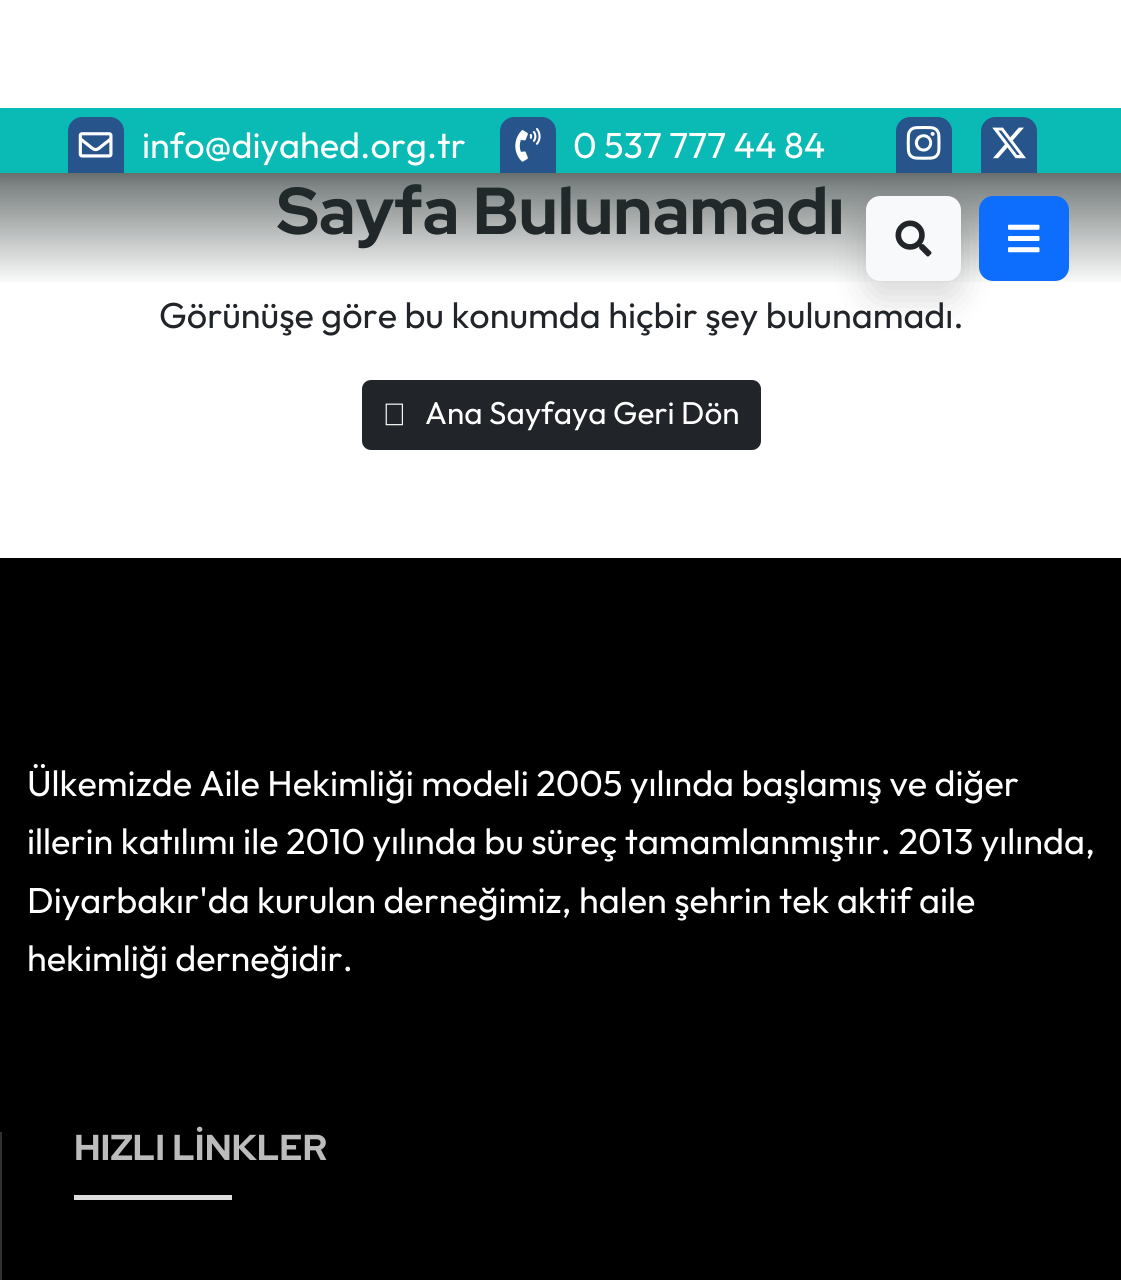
import math
import cairo



def rounded_rect(context, x, y, w, h, r):
    context.new_sub_path()
    for i, (u, v) in enumerate([(x + w - r, y + h - r), (x + r, y + h - r), (x + r, y + r), (x + w - r, y + r)]):
        context.arc(u, v, r, i * math.pi / 2, (i + 1) * math.pi / 2)
    context.close_path()


def draw_shadow(context, x, y, w, h, r, blur, alpha):
    context.push_group_with_content(cairo.Content.ALPHA)
    context.set_operator(cairo.Operator.SOURCE)
    for i in range(15, -16, -2):
        e = blur * i / 6
        if min(w, h) + 2 * e > 0:
            context.set_source_rgba(0, 0, 0, alpha * math.erfc((i - 1) / 8.5) / 2)
            rounded_rect(context, x - e, y - e, w + 2 * e, h + 2 * e, max(0, min(r + e + blur * .6, min(w, h) / 2 + e)))
            context.fill()
    context.mask(context.pop_group())


def draw_image(context, path, x, y, w, h):
    context.save()
    context.set_source_surface(cairo.ImageSurface.create_from_png(path), x, y)
    context.rectangle(x, y, w, h)
    context.fill()
    context.restore()


def draw(context):
    context.set_source_rgb(1, 1, 1)
    context.paint()
    context.set_source_rgb(33 / 255, 37 / 255, 41 / 255)
    rounded_rect(context, 363, 381, 397, 68, 8)
    context.fill_preserve()
    context.stroke()
    draw_image(context, "images/7.png", 385, 403, 18, 23)
    context.set_source_rgb(0, 0, 0)
    context.rectangle(0, 558, 1121, 722)
    context.fill()
    context.set_source_rgb(49 / 255, 49 / 255, 49 / 255)
    context.rectangle(0, 1132, 2, 148)
    context.fill()
    context.set_source_rgb(221 / 255, 221 / 255, 221 / 255)
    context.rectangle(74, 1195, 158, 5)
    context.fill()
    context.select_font_face("Red Hat Display ExtraBold")
    context.set_font_size(66.25)
    context.set_source_rgb(33 / 255, 37 / 255, 41 / 255)
    context.move_to(277, 234)
    context.show_text("Sayfa Bulunamadı")
    gradient = cairo.LinearGradient(561, 108, 561, 306)
    gradient.add_color_stop_rgba(0.2, 33 / 255, 45 / 255, 43 / 255, 0.8)
    gradient.add_color_stop_rgba(0.9, 33 / 255, 45 / 255, 43 / 255, 0)
    context.set_source(gradient)
    context.rectangle(0, 173, 1121, 109)
    context.fill()
    context.set_source_rgb(0, 0, 0)
    draw_shadow(context, 0, 113, 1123, 65, 0, 4.5, 0.07)
    context.set_source_rgb(10 / 255, 186 / 255, 181 / 255)
    context.rectangle(0, 108, 1121, 65)
    context.fill()
    context.set_source_rgb(39 / 255, 84 / 255, 138 / 255)
    context.new_path()
    context.move_to(995, 117)
    context.line_to(1023, 117)
    context.curve_to(1030.5, 117, 1037, 123.5, 1037, 131)
    context.line_to(1037, 173)
    context.line_to(981, 173)
    context.line_to(981, 131)
    context.curve_to(981, 123.5, 987.5, 117, 995, 117)
    context.close_path()
    context.fill()
    context.new_path()
    context.move_to(910, 117)
    context.line_to(938, 117)
    context.curve_to(945.5, 117, 952, 123.5, 952, 131)
    context.line_to(952, 173)
    context.line_to(896, 173)
    context.line_to(896, 131)
    context.curve_to(896, 123.5, 902.5, 117, 910, 117)
    context.close_path()
    context.fill()
    draw_image(context, "images/3.png", 906, 126, 35, 34)
    context.set_source_rgb(0, 0, 0)
    draw_shadow(context, 866, 214, 95, 85, 14, 18, 0.15)
    context.set_source_rgb(13 / 255, 110 / 255, 253 / 255)
    rounded_rect(context, 980, 197, 88, 83, 13)
    context.fill_preserve()
    context.stroke()
    draw_image(context, "images/6.png", 1008, 224, 32, 29)
    context.set_source_rgb(248 / 255, 249 / 255, 250 / 255)
    rounded_rect(context, 867, 197, 93, 83, 13)
    context.fill_preserve()
    context.stroke()
    draw_image(context, "images/5.png", 895, 220, 37, 37)
    draw_image(context, "images/4.png", 992, 127, 34, 32)
    context.select_font_face("Outfit")
    context.set_font_size(36)
    context.set_source_rgb(1, 1, 1)
    context.move_to(573, 158)
    context.show_text("0 537 777 44 84")
    context.set_source_rgb(39 / 255, 84 / 255, 138 / 255)
    context.new_path()
    context.move_to(514, 117)
    context.line_to(542, 117)
    context.curve_to(549.5, 117, 556, 123.5, 556, 131)
    context.line_to(556, 173)
    context.line_to(500, 173)
    context.line_to(500, 131)
    context.curve_to(500, 123.5, 506.5, 117, 514, 117)
    context.close_path()
    context.fill()
    draw_image(context, "images/2.png", 515, 128, 26, 34)
    context.set_source_rgb(1, 1, 1)
    context.move_to(142, 158)
    context.show_text("info@diyahed.org.tr")
    context.set_source_rgb(39 / 255, 84 / 255, 138 / 255)
    context.new_path()
    context.move_to(82, 117)
    context.line_to(110, 117)
    context.curve_to(117.5, 117, 124, 123.5, 124, 131)
    context.line_to(124, 173)
    context.line_to(68, 173)
    context.line_to(68, 131)
    context.curve_to(68, 123.5, 74.5, 117, 82, 117)
    context.close_path()
    context.fill()
    draw_image(context, "images/1.png", 78, 132, 35, 26)
    context.set_source_rgb(33 / 255, 37 / 255, 41 / 255)
    context.move_to(159, 328)
    context.show_text("Görünüşe göre bu konumda hiçbir şey bulunamadı.")
    context.set_font_size(31.5)
    context.set_source_rgb(1, 1, 1)
    context.move_to(425, 424)
    context.show_text("Ana Sayfaya Geri Dön")
    context.set_font_size(36)
    context.move_to(27, 796)
    context.show_text("Ülkemizde Aile Hekimliği modeli 2005 yılında başlamış ve diğer")
    context.move_to(27, 854)
    context.show_text("illerin katılımı ile 2010 yılında bu süreç tamamlanmıştır. 2013 yılında,")
    context.move_to(27, 913)
    context.show_text("Diyarbakır'da kurulan derneğimiz, halen şehrin tek aktif aile")
    context.move_to(27, 971)
    context.show_text("hekimliği derneğidir.")
    context.select_font_face("Red Hat Display ExtraBold")
    context.set_source_rgb(188 / 255, 188 / 255, 188 / 255)
    context.move_to(74, 1160)
    context.show_text("HIZLI LİNKLER")


surface = cairo.ImageSurface(cairo.Format.RGB24, 1121, 1280)
context = cairo.Context(surface)
options = cairo.FontOptions()
options.set_hint_metrics(cairo.HintMetrics.OFF)
options.set_hint_style(cairo.HintStyle.NONE)
context.set_font_options(options)
context.set_miter_limit(4)
draw(context)
surface.write_to_png("out.png")
